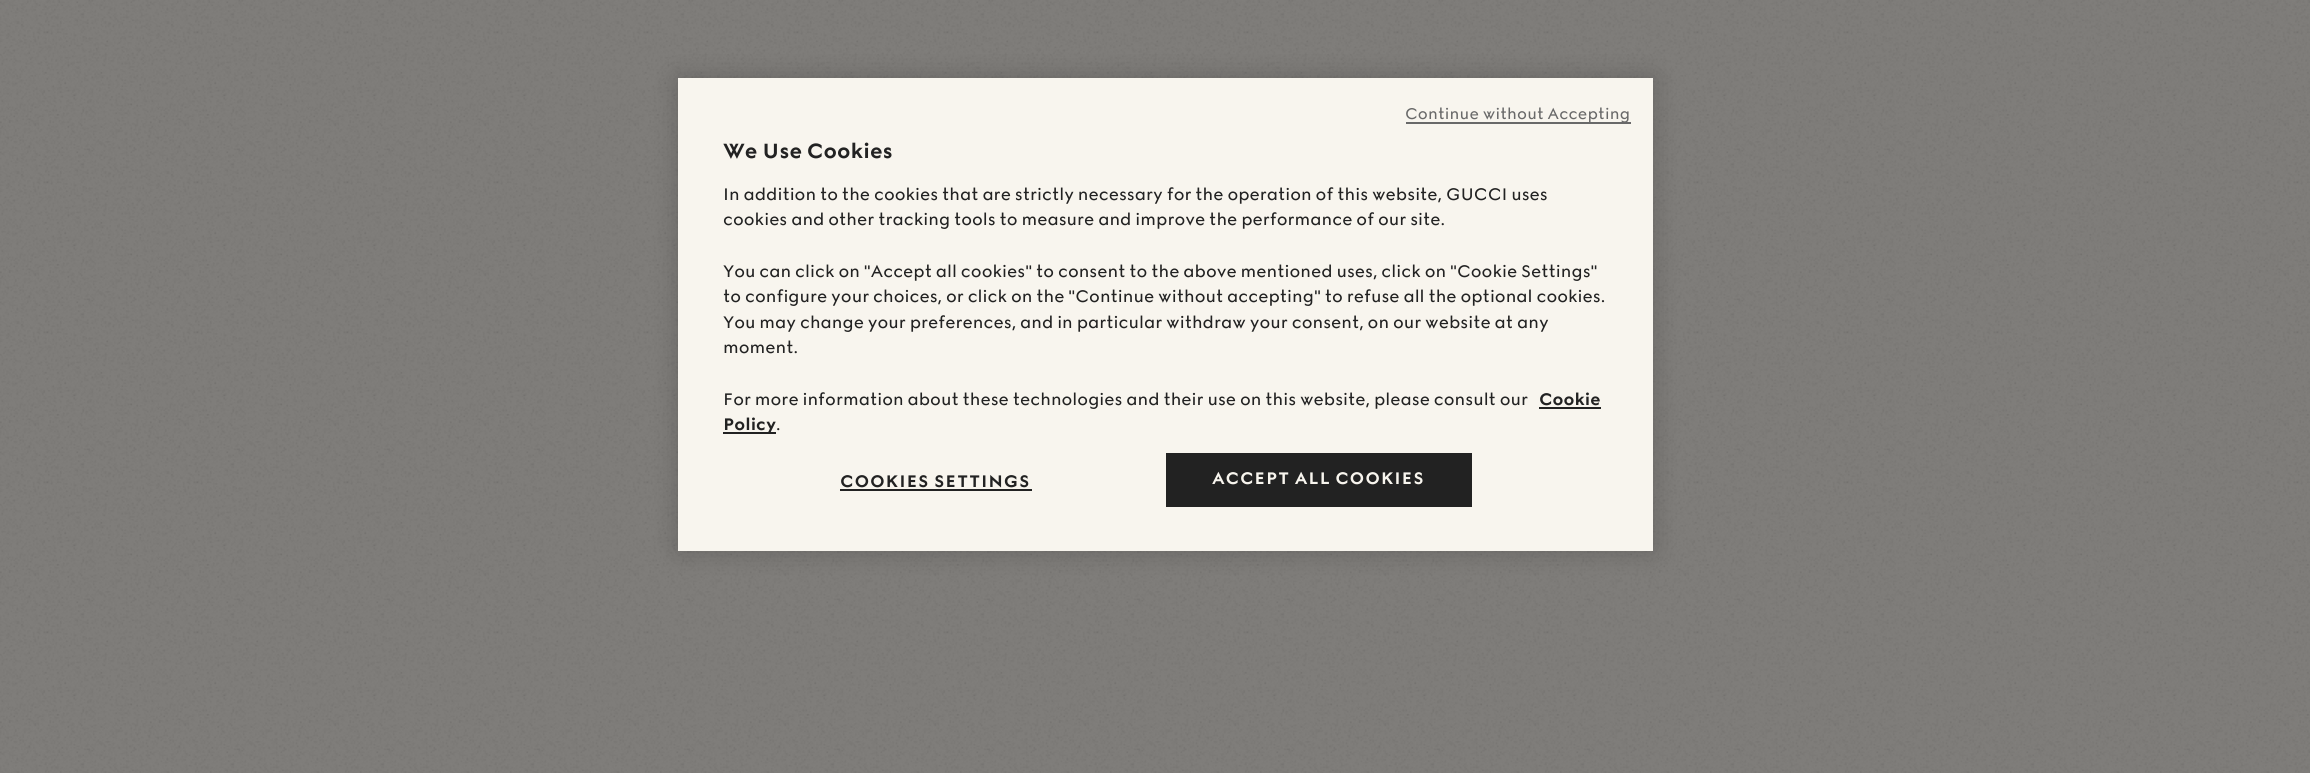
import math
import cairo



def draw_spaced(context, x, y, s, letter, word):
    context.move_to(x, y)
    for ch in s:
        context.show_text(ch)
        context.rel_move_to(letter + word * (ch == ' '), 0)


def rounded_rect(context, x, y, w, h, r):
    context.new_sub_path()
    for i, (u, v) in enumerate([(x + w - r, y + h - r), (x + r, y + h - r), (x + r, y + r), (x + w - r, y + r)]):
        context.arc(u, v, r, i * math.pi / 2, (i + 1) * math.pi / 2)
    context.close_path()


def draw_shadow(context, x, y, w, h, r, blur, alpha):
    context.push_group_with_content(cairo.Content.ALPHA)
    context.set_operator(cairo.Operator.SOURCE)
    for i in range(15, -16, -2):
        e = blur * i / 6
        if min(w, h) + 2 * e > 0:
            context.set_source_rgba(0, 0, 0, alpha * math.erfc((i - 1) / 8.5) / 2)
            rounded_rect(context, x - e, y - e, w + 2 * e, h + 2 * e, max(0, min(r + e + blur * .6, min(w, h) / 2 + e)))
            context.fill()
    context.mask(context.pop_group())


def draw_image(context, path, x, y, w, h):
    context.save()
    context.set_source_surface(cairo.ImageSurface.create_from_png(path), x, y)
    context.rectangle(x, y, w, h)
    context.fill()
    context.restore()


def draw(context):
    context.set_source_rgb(127 / 255, 125 / 255, 122 / 255)
    context.paint()
    draw_image(context, "images/1.png", 0, 0, 2310, 773)
    context.set_source_rgb(0, 0, 0)
    draw_shadow(context, 678, 78, 975, 473, 0, 13.5, 0.2)
    context.set_source_rgb(248 / 255, 245 / 255, 238 / 255)
    context.rectangle(678, 78, 975, 473)
    context.fill()
    context.set_source_rgb(105 / 255, 105 / 255, 105 / 255)
    context.rectangle(1406, 122, 225, 2)
    context.fill()
    context.set_source_rgb(34 / 255, 34 / 255, 34 / 255)
    context.rectangle(1539, 407, 62, 2)
    context.fill()
    context.rectangle(723, 432, 53, 2)
    context.fill()
    context.rectangle(840, 489, 192, 2)
    context.fill()
    context.rectangle(1166, 453, 306, 54)
    context.fill()
    context.select_font_face("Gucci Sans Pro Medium")
    context.set_font_size(15.75)
    context.set_source_rgb(105 / 255, 105 / 255, 105 / 255)
    draw_spaced(context, 1405, 119, "Continue without Accepting", 0.15, 0)
    context.select_font_face("Gucci Sans Pro Black")
    context.set_font_size(21)
    context.set_source_rgb(34 / 255, 34 / 255, 34 / 255)
    context.move_to(723, 158)
    context.show_text("We Use Cookies")
    context.select_font_face("Gucci Sans Pro Medium")
    context.set_font_size(17.07)
    context.move_to(723, 200)
    context.show_text("In addition to the cookies that are strictly necessary for the operation of this website, GUCCI uses")
    context.move_to(723, 225)
    context.show_text("cookies and other tracking tools to measure and improve the performance of our site.")
    context.move_to(723, 277)
    context.show_text("You can click on \"Accept all cookies\" to consent to the above mentioned uses, click on \"Cookie Settings\"")
    context.move_to(723, 302)
    context.show_text("to configure your choices, or click on the \"Continue without accepting\" to refuse all the optional cookies.")
    context.move_to(723, 328)
    context.show_text("You may change your preferences, and in particular withdraw your consent, on our website at any")
    context.move_to(723, 353)
    context.show_text("moment.")
    context.move_to(723, 405)
    context.show_text("For more information about these technologies and their use on this website, please consult our")
    context.select_font_face("Gucci Sans Pro Black")
    context.move_to(1539, 405)
    context.show_text("Cookie")
    context.move_to(723, 430)
    context.show_text("Policy")
    context.select_font_face("Gucci Sans Pro Medium")
    context.move_to(776, 430)
    context.show_text(".")
    context.select_font_face("Gucci Sans Pro Black")
    draw_spaced(context, 840, 487, "COOKIES SETTINGS", 0.8, 0)
    context.set_source_rgb(248 / 255, 245 / 255, 238 / 255)
    draw_spaced(context, 1212, 484, "ACCEPT ALL COOKIES", 0.8, 0)


surface = cairo.ImageSurface(cairo.Format.RGB24, 2310, 773)
context = cairo.Context(surface)
options = cairo.FontOptions()
options.set_hint_metrics(cairo.HintMetrics.OFF)
options.set_hint_style(cairo.HintStyle.NONE)
context.set_font_options(options)
context.set_miter_limit(4)
draw(context)
surface.write_to_png("out.png")
